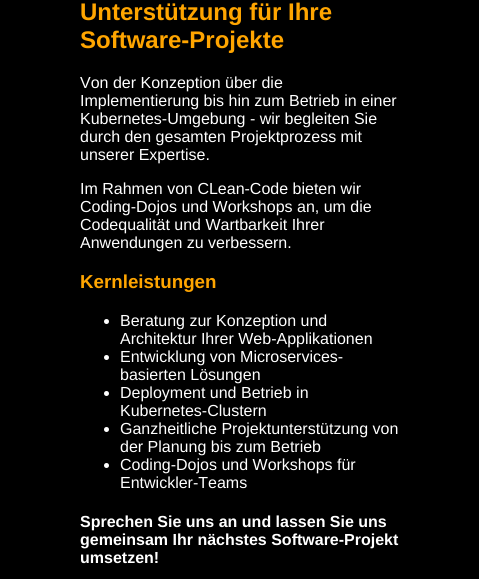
import math
import cairo



def draw(context):
    context.set_source_rgb(0, 0, 0)
    context.paint()
    context.set_source_rgb(1, 1, 1)
    context.arc(106.5, 321.5, 2.5, 0, 2 * math.pi)
    context.fill()
    context.arc(106.5, 357.5, 2.5, 0, 2 * math.pi)
    context.fill()
    context.arc(106.5, 393.5, 2.5, 0, 2 * math.pi)
    context.fill()
    context.arc(106.5, 429.5, 2.5, 0, 2 * math.pi)
    context.fill()
    context.arc(106.5, 465.5, 2.5, 0, 2 * math.pi)
    context.fill()
    context.select_font_face("Liberation Sans", cairo.FontSlant.NORMAL, cairo.FontWeight.BOLD)
    context.set_font_size(24)
    context.set_source_rgb(1, 165 / 255, 0)
    context.move_to(80, 20)
    context.show_text("Unterstützung für Ihre")
    context.move_to(80, 48)
    context.show_text("Software-Projekte")
    context.select_font_face("Liberation Sans")
    context.set_font_size(16)
    context.set_source_rgb(1, 1, 1)
    context.move_to(80, 88)
    context.show_text("Von der Konzeption über die")
    context.move_to(80, 106)
    context.show_text("Implementierung bis hin zum Betrieb in einer")
    context.move_to(80, 124)
    context.show_text("Kubernetes-Umgebung - wir begleiten Sie")
    context.move_to(80, 142)
    context.show_text("durch den gesamten Projektprozess mit")
    context.move_to(80, 160)
    context.show_text("unserer Expertise.")
    context.move_to(80, 194)
    context.show_text("Im Rahmen von CLean-Code bieten wir")
    context.move_to(80, 212)
    context.show_text("Coding-Dojos und Workshops an, um die")
    context.move_to(80, 230)
    context.show_text("Codequalität und Wartbarkeit Ihrer")
    context.move_to(80, 248)
    context.show_text("Anwendungen zu verbessern.")
    context.select_font_face("Liberation Sans", cairo.FontSlant.NORMAL, cairo.FontWeight.BOLD)
    context.set_font_size(18.75)
    context.set_source_rgb(1, 165 / 255, 0)
    context.move_to(80, 288)
    context.show_text("Kernleistungen")
    context.select_font_face("Liberation Sans")
    context.set_font_size(16)
    context.set_source_rgb(1, 1, 1)
    context.move_to(120, 326)
    context.show_text("Beratung zur Konzeption und")
    context.move_to(120, 344)
    context.show_text("Architektur Ihrer Web-Applikationen")
    context.move_to(120, 362)
    context.show_text("Entwicklung von Microservices-")
    context.move_to(120, 380)
    context.show_text("basierten Lösungen")
    context.move_to(120, 398)
    context.show_text("Deployment und Betrieb in")
    context.move_to(120, 416)
    context.show_text("Kubernetes-Clustern")
    context.move_to(120, 434)
    context.show_text("Ganzheitliche Projektunterstützung von")
    context.move_to(120, 452)
    context.show_text("der Planung bis zum Betrieb")
    context.move_to(120, 470)
    context.show_text("Coding-Dojos und Workshops für")
    context.move_to(120, 488)
    context.show_text("Entwickler-Teams")
    context.select_font_face("Liberation Sans", cairo.FontSlant.NORMAL, cairo.FontWeight.BOLD)
    context.move_to(80, 527)
    context.show_text("Sprechen Sie uns an und lassen Sie uns")
    context.move_to(80, 545)
    context.show_text("gemeinsam Ihr nächstes Software-Projekt")
    context.move_to(80, 563)
    context.show_text("umsetzen!")


surface = cairo.ImageSurface(cairo.Format.RGB24, 479, 579)
context = cairo.Context(surface)
options = cairo.FontOptions()
options.set_hint_metrics(cairo.HintMetrics.OFF)
options.set_hint_style(cairo.HintStyle.NONE)
context.set_font_options(options)
context.set_miter_limit(4)
draw(context)
surface.write_to_png("out.png")
